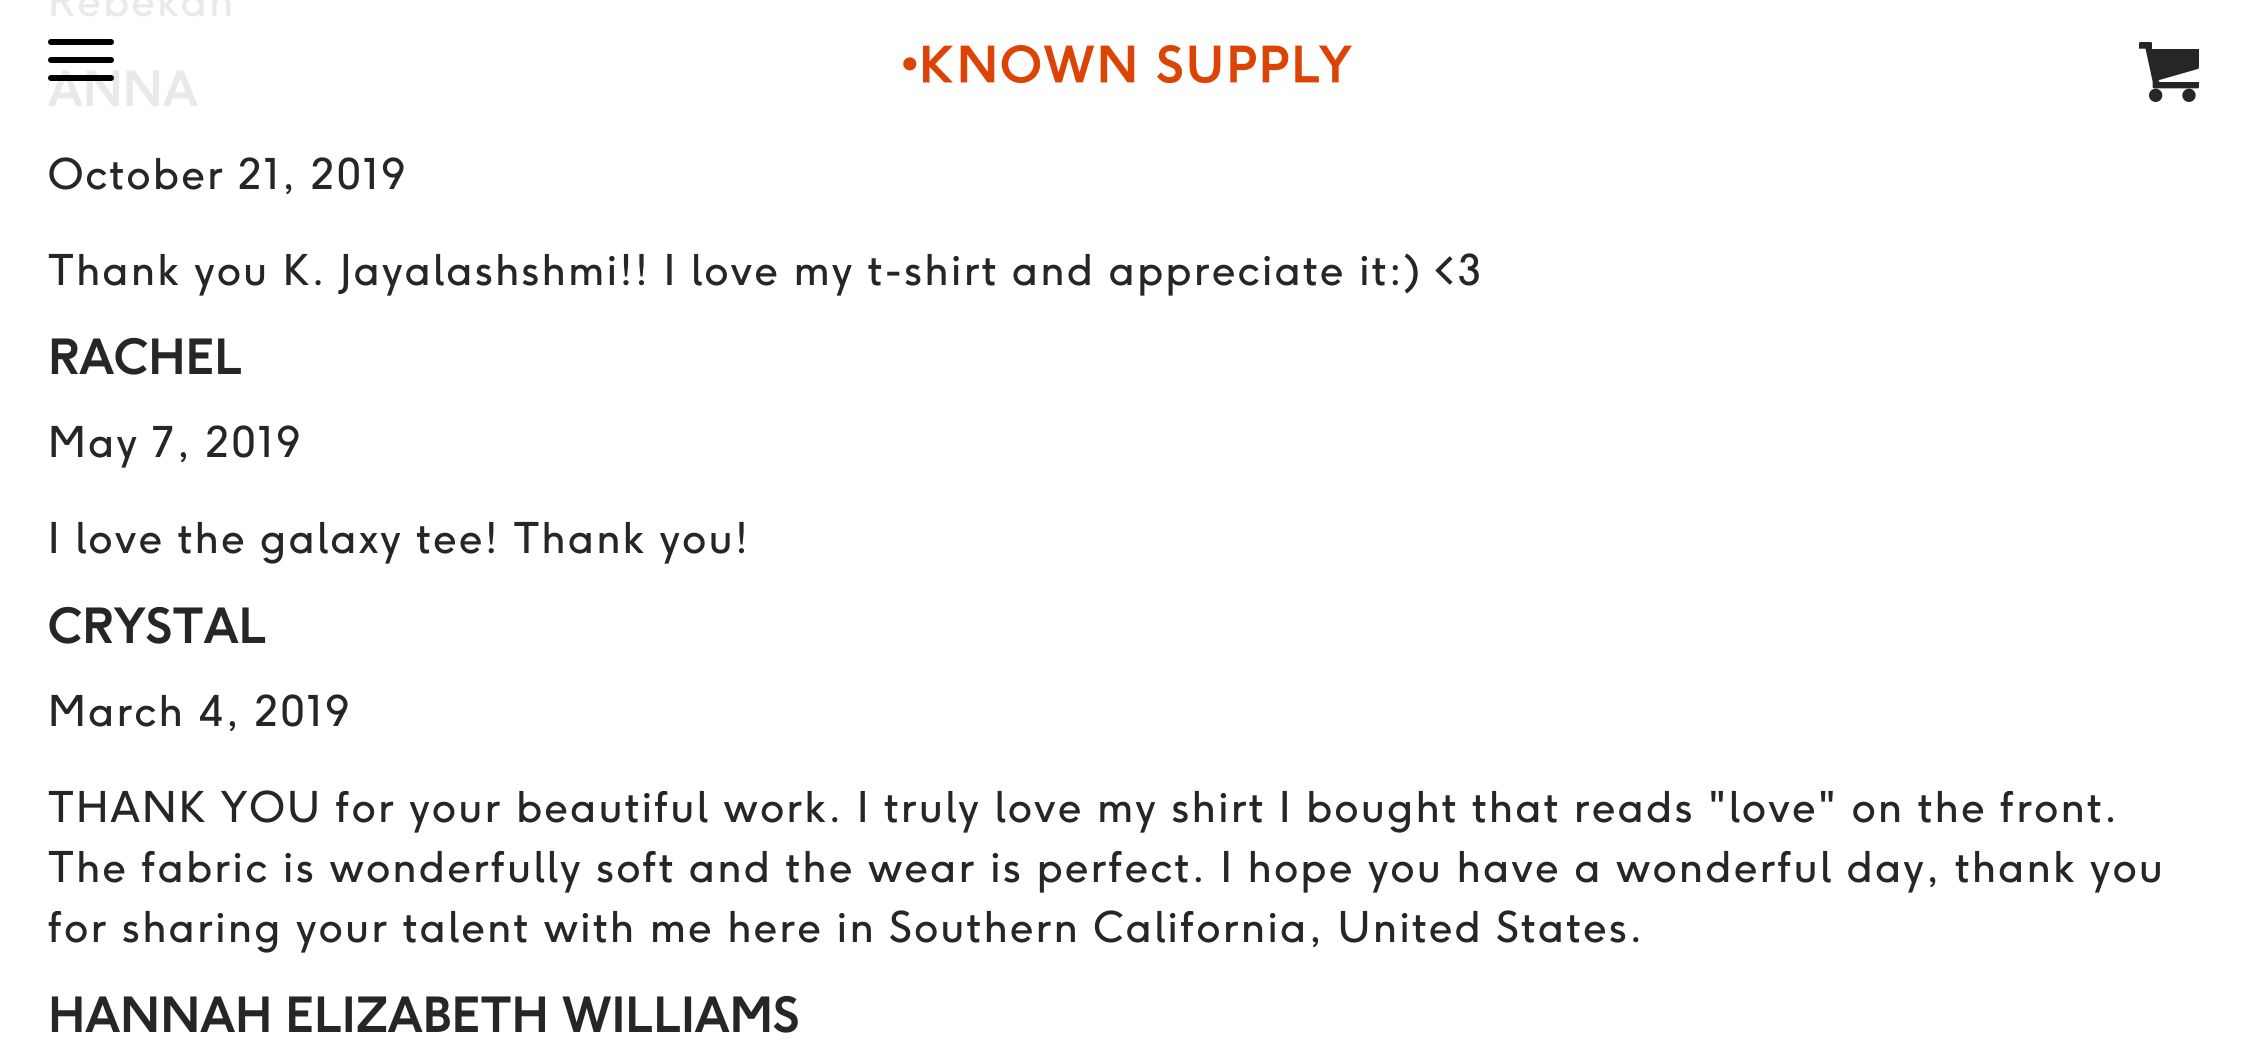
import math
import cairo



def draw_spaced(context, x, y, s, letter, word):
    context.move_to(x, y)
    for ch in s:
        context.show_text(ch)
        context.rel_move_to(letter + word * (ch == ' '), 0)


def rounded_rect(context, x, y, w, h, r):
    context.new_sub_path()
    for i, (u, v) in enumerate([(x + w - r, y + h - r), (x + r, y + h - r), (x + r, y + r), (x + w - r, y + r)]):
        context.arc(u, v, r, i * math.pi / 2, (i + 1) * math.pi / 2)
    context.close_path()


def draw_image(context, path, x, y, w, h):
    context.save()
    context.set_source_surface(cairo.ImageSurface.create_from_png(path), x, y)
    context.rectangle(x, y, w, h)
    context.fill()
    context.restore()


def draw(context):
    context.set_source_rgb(1, 1, 1)
    context.paint()
    context.set_source_rgb(0, 0, 0)
    rounded_rect(context, 48, 39, 66, 6, 3)
    context.fill()
    rounded_rect(context, 48, 57, 66, 6, 3)
    context.fill()
    draw_image(context, "images/1.png", 903, 45, 449, 39)
    draw_image(context, "images/2.png", 2139, 42, 60, 60)
    context.select_font_face("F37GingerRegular")
    context.set_font_size(42)
    context.set_source_rgb(233 / 255, 233 / 255, 233 / 255)
    draw_spaced(context, 48, 16, "Rebekah", 2.1, 0)
    context.select_font_face("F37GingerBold", cairo.FontSlant.NORMAL, cairo.FontWeight.BOLD)
    context.set_font_size(48)
    context.move_to(48, 106)
    context.show_text("ANNA")
    context.select_font_face("F37GingerRegular")
    context.set_font_size(42)
    context.set_source_rgb(38 / 255, 38 / 255, 38 / 255)
    draw_spaced(context, 48, 189, "October 21, 2019", 2.1, 0)
    draw_spaced(context, 48, 285, "Thank you K. Jayalashshmi!! I love my t-shirt and appreciate it:) <3", 2.1, 0)
    context.select_font_face("F37GingerBold", cairo.FontSlant.NORMAL, cairo.FontWeight.BOLD)
    context.set_font_size(48)
    context.move_to(48, 374)
    context.show_text("RACHEL")
    context.select_font_face("F37GingerRegular")
    context.set_font_size(42)
    draw_spaced(context, 48, 457, "May 7, 2019", 2.1, 0)
    draw_spaced(context, 48, 553, "I love the galaxy tee! Thank you!", 2.1, 0)
    context.select_font_face("F37GingerBold", cairo.FontSlant.NORMAL, cairo.FontWeight.BOLD)
    context.set_font_size(48)
    context.move_to(48, 643)
    context.show_text("CRYSTAL")
    context.select_font_face("F37GingerRegular")
    context.set_font_size(42)
    draw_spaced(context, 48, 726, "March 4, 2019", 2.1, 0)
    draw_spaced(context, 48, 822, "THANK YOU for your beautiful work. I truly love my shirt I bought that reads \"love\" on the front.", 2.1, 0)
    draw_spaced(context, 48, 882, "The fabric is wonderfully soft and the wear is perfect. I hope you have a wonderful day, thank you", 2.1, 0)
    draw_spaced(context, 48, 942, "for sharing your talent with me here in Southern California, United States.", 2.1, 0)
    context.select_font_face("F37GingerBold", cairo.FontSlant.NORMAL, cairo.FontWeight.BOLD)
    context.set_font_size(48)
    context.move_to(48, 1032)
    context.show_text("HANNAH ELIZABETH WILLIAMS")
    context.set_source_rgb(0, 0, 0)
    rounded_rect(context, 48, 75, 66, 6, 3)
    context.fill()


surface = cairo.ImageSurface(cairo.Format.RGB24, 2247, 1056)
context = cairo.Context(surface)
options = cairo.FontOptions()
options.set_hint_metrics(cairo.HintMetrics.OFF)
options.set_hint_style(cairo.HintStyle.NONE)
context.set_font_options(options)
context.set_miter_limit(4)
draw(context)
surface.write_to_png("out.png")
